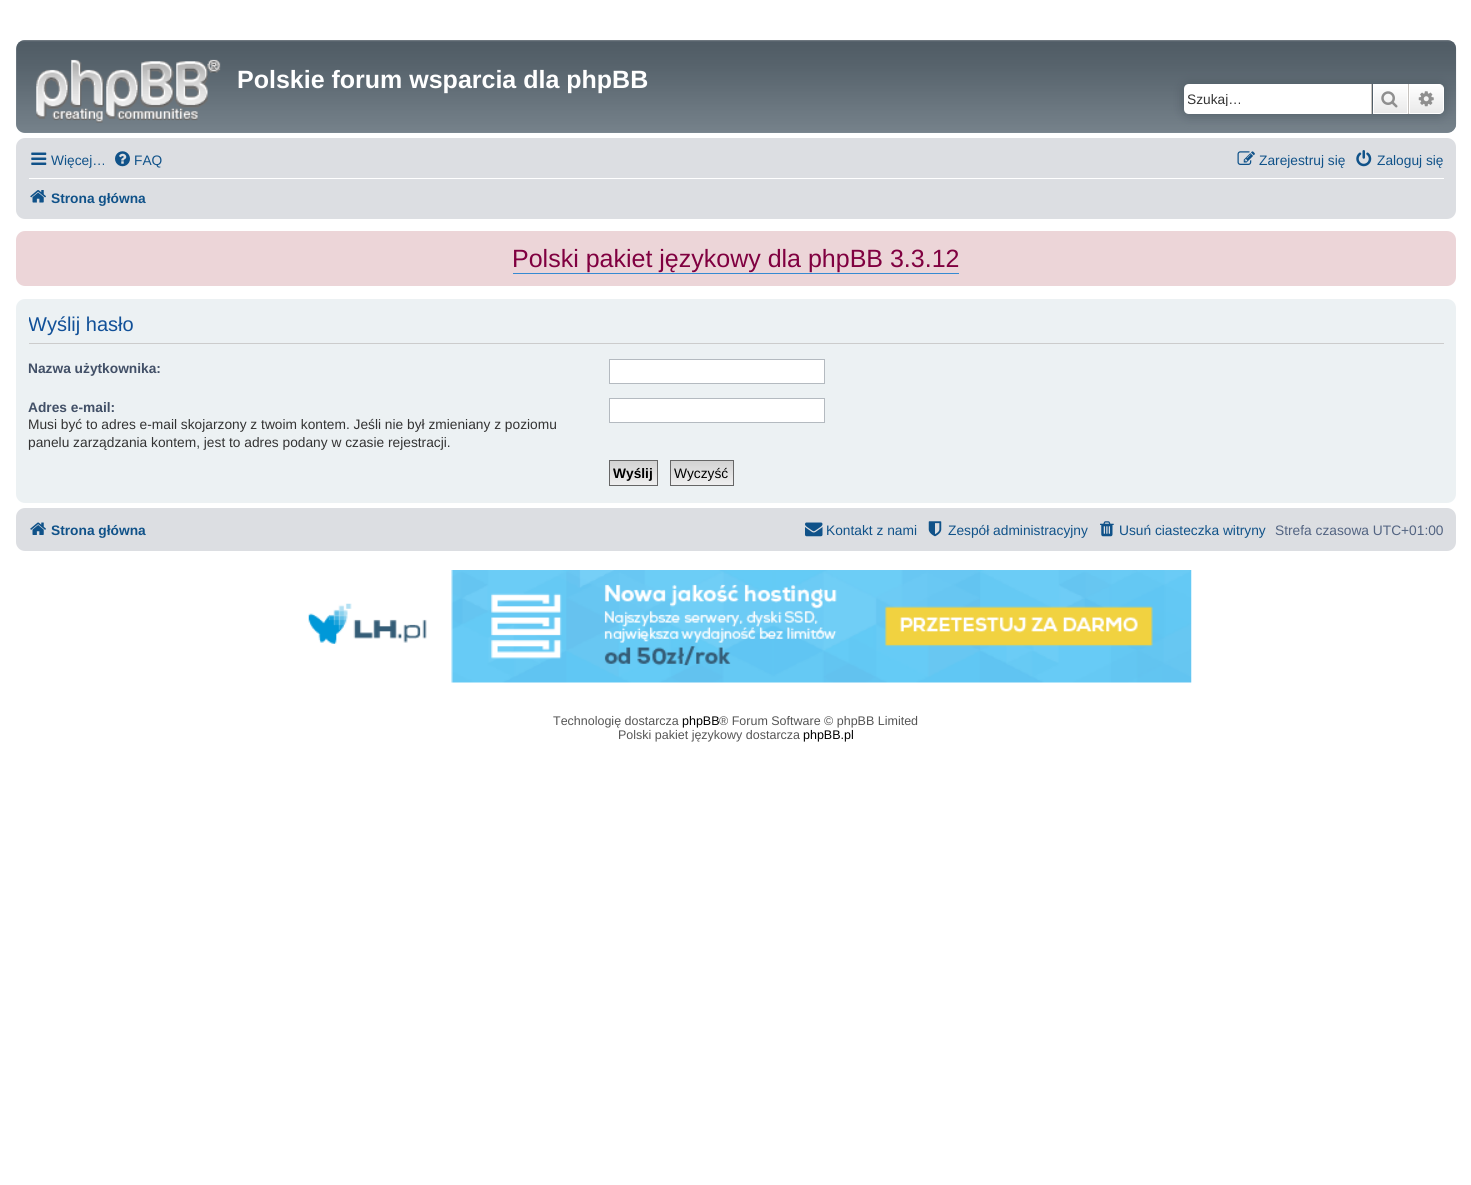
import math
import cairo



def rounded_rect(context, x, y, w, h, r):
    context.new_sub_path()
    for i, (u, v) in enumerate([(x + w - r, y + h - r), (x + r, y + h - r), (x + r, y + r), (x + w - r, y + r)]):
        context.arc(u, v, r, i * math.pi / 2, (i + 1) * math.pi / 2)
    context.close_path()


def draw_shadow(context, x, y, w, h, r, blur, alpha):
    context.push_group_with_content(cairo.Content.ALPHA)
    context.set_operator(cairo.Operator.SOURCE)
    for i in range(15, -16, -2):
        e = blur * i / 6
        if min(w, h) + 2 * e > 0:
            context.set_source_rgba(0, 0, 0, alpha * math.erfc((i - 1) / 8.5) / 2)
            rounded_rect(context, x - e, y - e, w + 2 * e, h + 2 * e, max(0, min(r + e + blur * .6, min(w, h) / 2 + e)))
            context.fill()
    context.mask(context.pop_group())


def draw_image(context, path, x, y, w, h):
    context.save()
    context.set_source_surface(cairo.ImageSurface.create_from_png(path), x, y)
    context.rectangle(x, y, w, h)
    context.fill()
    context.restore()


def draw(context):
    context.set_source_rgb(1, 1, 1)
    context.paint()
    context.set_source_rgb(124 / 255, 136 / 255, 145 / 255)
    rounded_rect(context, 16, 40, 1440, 93, 9)
    context.fill()
    draw_image(context, "images/1.png", 16, 40, 1441, 93)
    draw_image(context, "images/2.png", 36, 59, 185, 64)
    context.set_source_rgb(80 / 255, 92 / 255, 101 / 255)
    draw_shadow(context, 1184, 84, 260, 30, 5, 6, 1)
    context.set_source_rgb(1, 1, 1)
    context.new_path()
    context.move_to(1189, 84)
    context.line_to(1371, 84)
    context.line_to(1371, 114)
    context.line_to(1189, 114)
    context.curve_to(1186, 114, 1184, 112, 1184, 109)
    context.line_to(1184, 89)
    context.curve_to(1184, 86, 1186, 84, 1189, 84)
    context.close_path()
    context.fill()
    gradient = cairo.LinearGradient(1390, 84, 1390, 114)
    gradient.add_color_stop_rgba(0, 1, 1, 1, 1)
    gradient.add_color_stop_rgba(1, 233 / 255, 233 / 255, 233 / 255, 1)
    context.set_source(gradient)
    context.rectangle(1374, 85, 33, 28)
    context.fill()
    context.rectangle(1373.5, 84.5, 34, 29)
    context.set_source_rgb(1, 1, 1)
    context.set_line_width(1)
    context.stroke()
    context.set_source_rgb(199 / 255, 195 / 255, 191 / 255)
    context.rectangle(1408, 84, 1, 30)
    context.fill()
    context.rectangle(1371, 84, 1, 30)
    context.fill()
    draw_image(context, "images/3.png", 1381, 91, 17, 17)
    gradient = cairo.LinearGradient(1426, 84, 1426, 114)
    gradient.add_color_stop_rgba(0, 1, 1, 1, 1)
    gradient.add_color_stop_rgba(1, 233 / 255, 233 / 255, 233 / 255, 1)
    context.set_source(gradient)
    context.new_path()
    context.move_to(1409.5, 84.5)
    context.line_to(1439, 84.5)
    context.curve_to(1441.5, 84.5, 1443.5, 86.5, 1443.5, 89)
    context.line_to(1443.5, 109)
    context.curve_to(1443.5, 111.5, 1441.5, 113.5, 1439, 113.5)
    context.line_to(1409.5, 113.5)
    context.close_path()
    context.fill_preserve()
    context.set_source_rgb(1, 1, 1)
    context.stroke()
    draw_image(context, "images/4.png", 1418, 91, 16, 16)
    context.set_source_rgb(220 / 255, 222 / 255, 226 / 255)
    rounded_rect(context, 16, 138, 1440, 81, 9)
    context.fill()
    draw_image(context, "images/5.png", 31, 152, 16, 13)
    draw_image(context, "images/6.png", 115, 151, 15, 16)
    draw_image(context, "images/7.png", 1237, 151, 18, 14)
    draw_image(context, "images/8.png", 1356, 150, 16, 17)
    context.set_source_rgb(1, 1, 1)
    context.rectangle(29, 178, 1415, 1)
    context.fill()
    draw_image(context, "images/9.png", 30, 190, 16, 13)
    context.set_source_rgb(236 / 255, 213 / 255, 216 / 255)
    rounded_rect(context, 16, 231, 1440, 55, 9)
    context.fill()
    context.set_source_rgb(54 / 255, 138 / 255, 210 / 255)
    context.rectangle(513, 273, 446, 1)
    context.fill()
    context.set_source_rgb(236 / 255, 241 / 255, 243 / 255)
    rounded_rect(context, 16, 299, 1440, 204, 9)
    context.fill()
    context.set_source_rgb(204 / 255, 204 / 255, 204 / 255)
    context.rectangle(29, 343, 1415, 1)
    context.fill()
    context.set_source_rgb(1, 1, 1)
    context.rectangle(609.5, 359.5, 215, 24)
    context.fill_preserve()
    context.set_source_rgb(180 / 255, 186 / 255, 192 / 255)
    context.stroke()
    context.set_source_rgb(1, 1, 1)
    context.rectangle(609.5, 398.5, 215, 24)
    context.fill_preserve()
    context.set_source_rgb(180 / 255, 186 / 255, 192 / 255)
    context.stroke()
    gradient = cairo.LinearGradient(633, 461, 633, 485)
    gradient.add_color_stop_rgba(0, 210 / 255, 210 / 255, 210 / 255, 1)
    gradient.add_color_stop_rgba(1, 239 / 255, 239 / 255, 239 / 255, 1)
    context.set_source(gradient)
    context.rectangle(610, 461, 47, 24)
    context.fill()
    context.rectangle(609.5, 460.5, 48, 25)
    context.set_source_rgb(102 / 255, 102 / 255, 102 / 255)
    context.stroke()
    gradient = cairo.LinearGradient(702, 461, 702, 485)
    gradient.add_color_stop_rgba(0, 210 / 255, 210 / 255, 210 / 255, 1)
    gradient.add_color_stop_rgba(1, 239 / 255, 239 / 255, 239 / 255, 1)
    context.set_source(gradient)
    context.rectangle(671, 461, 62, 24)
    context.fill()
    context.rectangle(670.5, 460.5, 63, 25)
    context.set_source_rgb(102 / 255, 102 / 255, 102 / 255)
    context.stroke()
    context.set_source_rgb(220 / 255, 222 / 255, 226 / 255)
    rounded_rect(context, 16, 508, 1440, 43, 9)
    context.fill()
    draw_image(context, "images/10.png", 30, 522, 16, 13)
    draw_image(context, "images/11.png", 805, 522, 18, 15)
    draw_image(context, "images/12.png", 928, 521, 14, 16)
    draw_image(context, "images/13.png", 1100, 521, 14, 16)
    draw_image(context, "images/14.png", 308, 570, 884, 113)
    context.select_font_face("Liberation Sans", cairo.FontSlant.NORMAL, cairo.FontWeight.BOLD)
    context.set_font_size(25)
    context.set_source_rgb(1, 1, 1)
    context.move_to(237, 88)
    context.show_text("Polskie forum wsparcia dla phpBB")
    context.save()
    context.rectangle(1188, 91, 175, 15)
    context.clip()
    context.select_font_face("Liberation Sans")
    context.set_font_size(13.75)
    context.set_source_rgb(51 / 255, 51 / 255, 51 / 255)
    context.move_to(1187, 104)
    context.show_text("Szukaj…")
    context.restore()
    context.select_font_face("Liberation Sans")
    context.set_font_size(13.75)
    context.set_source_rgb(16 / 255, 82 / 255, 137 / 255)
    context.move_to(51, 165)
    context.show_text("Więcej…")
    context.move_to(134, 165)
    context.show_text("FAQ")
    context.move_to(1259, 165)
    context.show_text("Zarejestruj się")
    context.move_to(1377, 165)
    context.show_text("Zaloguj się")
    context.select_font_face("Liberation Sans", cairo.FontSlant.NORMAL, cairo.FontWeight.BOLD)
    context.move_to(51, 203)
    context.show_text("Strona główna")
    context.select_font_face("Liberation Sans")
    context.set_font_size(25)
    context.set_source_rgb(128 / 255, 0, 64 / 255)
    context.move_to(512, 267)
    context.show_text("Polski pakiet językowy dla phpBB 3.3.12")
    context.save()
    context.rectangle(29, 305, 1415, 191)
    context.clip()
    context.set_font_size(20)
    context.set_source_rgb(17 / 255, 80 / 255, 152 / 255)
    context.move_to(28, 331)
    context.show_text("Wyślij hasło")
    context.restore()
    context.select_font_face("Liberation Sans", cairo.FontSlant.NORMAL, cairo.FontWeight.BOLD)
    context.set_font_size(13.75)
    context.set_source_rgb(66 / 255, 80 / 255, 103 / 255)
    context.move_to(28, 373)
    context.show_text("Nazwa użytkownika:")
    context.move_to(28, 412)
    context.show_text("Adres e-mail:")
    context.select_font_face("Liberation Sans")
    context.set_source_rgb(51 / 255, 51 / 255, 51 / 255)
    context.move_to(28, 429)
    context.show_text("Musi być to adres e-mail skojarzony z twoim kontem. Jeśli nie był zmieniany z poziomu")
    context.move_to(28, 447)
    context.show_text("panelu zarządzania kontem, jest to adres podany w czasie rejestracji.")
    context.select_font_face("Liberation Sans", cairo.FontSlant.NORMAL, cairo.FontWeight.BOLD)
    context.set_source_rgb(0, 0, 0)
    context.move_to(613, 478)
    context.show_text("Wyślij")
    context.select_font_face("Liberation Sans")
    context.move_to(674, 478)
    context.show_text("Wyczyść")
    context.select_font_face("Liberation Sans", cairo.FontSlant.NORMAL, cairo.FontWeight.BOLD)
    context.set_source_rgb(16 / 255, 82 / 255, 137 / 255)
    context.move_to(51, 535)
    context.show_text("Strona główna")
    context.select_font_face("Liberation Sans")
    context.move_to(826, 535)
    context.show_text("Kontakt z nami")
    context.move_to(948, 535)
    context.show_text("Zespół administracyjny")
    context.move_to(1119, 535)
    context.show_text("Usuń ciasteczka witryny")
    context.set_source_rgb(83 / 255, 100 / 255, 130 / 255)
    context.move_to(1275, 535)
    context.show_text("Strefa czasowa UTC+01:00")
    context.set_font_size(12.5)
    context.set_source_rgb(85 / 255, 85 / 255, 85 / 255)
    context.move_to(553, 725)
    context.show_text("Technologię dostarcza")
    context.set_source_rgb(0, 0, 0)
    context.move_to(682, 725)
    context.show_text("phpBB")
    context.set_source_rgb(85 / 255, 85 / 255, 85 / 255)
    context.move_to(719, 725)
    context.show_text("® Forum Software © phpBB Limited")
    context.move_to(618, 739)
    context.show_text("Polski pakiet językowy dostarcza")
    context.set_source_rgb(0, 0, 0)
    context.move_to(803, 739)
    context.show_text("phpBB.pl")


surface = cairo.ImageSurface(cairo.Format.RGB24, 1471, 1185)
context = cairo.Context(surface)
options = cairo.FontOptions()
options.set_hint_metrics(cairo.HintMetrics.OFF)
options.set_hint_style(cairo.HintStyle.NONE)
context.set_font_options(options)
context.set_miter_limit(4)
draw(context)
surface.write_to_png("out.png")
